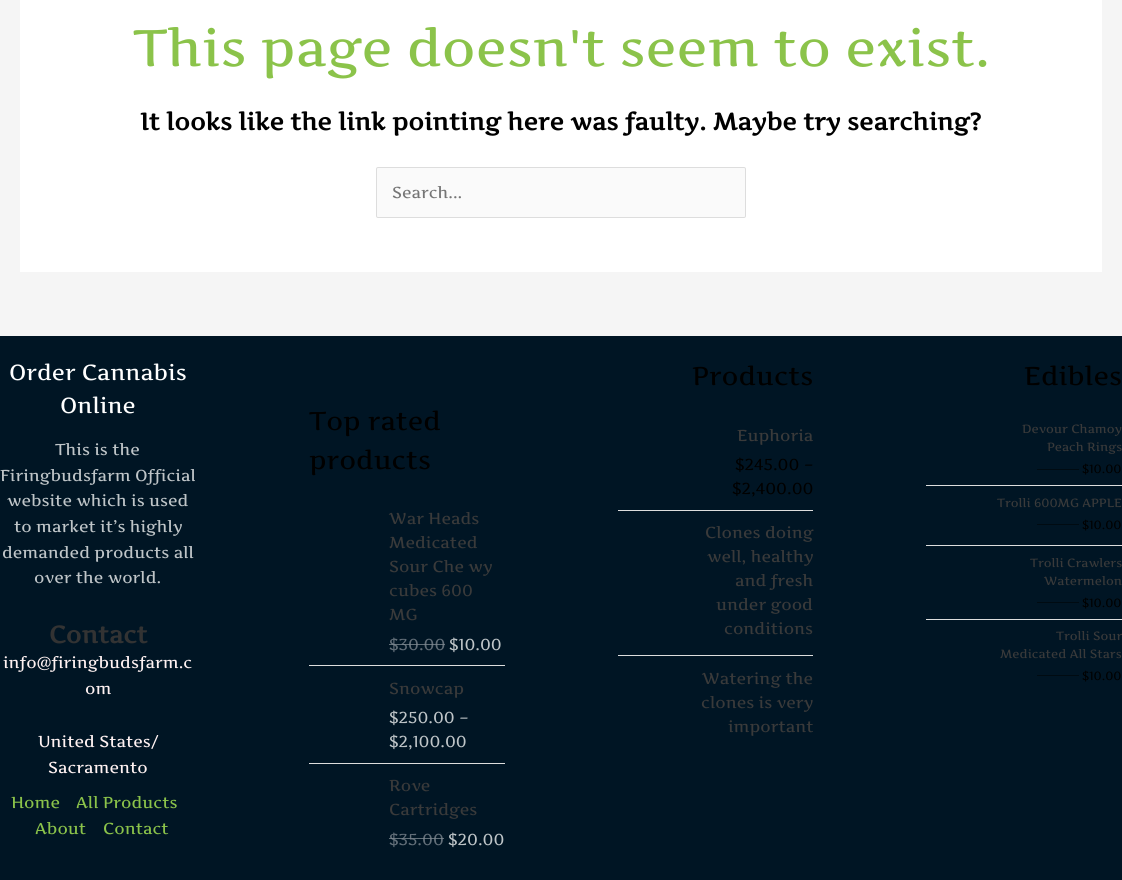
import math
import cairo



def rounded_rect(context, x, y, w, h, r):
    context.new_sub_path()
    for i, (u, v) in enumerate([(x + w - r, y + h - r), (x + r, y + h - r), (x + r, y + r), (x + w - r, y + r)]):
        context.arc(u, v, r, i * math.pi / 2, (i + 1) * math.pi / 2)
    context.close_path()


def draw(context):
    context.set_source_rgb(245 / 255, 245 / 255, 245 / 255)
    context.paint()
    context.set_source_rgb(1, 1, 1)
    context.rectangle(20, 0, 1082, 272)
    context.fill()
    context.set_source_rgb(250 / 255, 250 / 255, 250 / 255)
    rounded_rect(context, 376.5, 167.5, 369, 50, 1.5)
    context.fill_preserve()
    context.set_source_rgb(221 / 255, 221 / 255, 221 / 255)
    context.set_line_width(1)
    context.stroke()
    context.set_source_rgb(0, 21 / 255, 36 / 255)
    context.rectangle(0, 336, 1122, 544)
    context.fill()
    context.set_source_rgb(221 / 255, 221 / 255, 221 / 255)
    context.rectangle(309, 665, 196, 1)
    context.fill()
    context.rectangle(309, 763, 196, 1)
    context.fill()
    context.rectangle(618, 510, 195, 1)
    context.fill()
    context.rectangle(618, 655, 195, 1)
    context.fill()
    context.rectangle(926, 485, 196, 1)
    context.fill()
    context.set_source_rgb(0, 11 / 255, 18 / 255)
    context.rectangle(1037, 469, 42, 1)
    context.fill()
    context.set_source_rgb(221 / 255, 221 / 255, 221 / 255)
    context.rectangle(926, 545, 196, 1)
    context.fill()
    context.set_source_rgb(0, 11 / 255, 18 / 255)
    context.rectangle(1037, 524, 42, 1)
    context.fill()
    context.set_source_rgb(221 / 255, 221 / 255, 221 / 255)
    context.rectangle(926, 619, 196, 1)
    context.fill()
    context.set_source_rgb(0, 11 / 255, 18 / 255)
    context.rectangle(1037, 602, 42, 1)
    context.fill()
    context.rectangle(1037, 675, 42, 1)
    context.fill()
    context.select_font_face("Artifika")
    context.set_font_size(52)
    context.set_source_rgb(139 / 255, 195 / 255, 74 / 255)
    context.move_to(133, 66)
    context.show_text("This page doesn't seem to exist.")
    context.select_font_face("Artifika", cairo.FontSlant.NORMAL, cairo.FontWeight.BOLD)
    context.set_font_size(24)
    context.set_source_rgb(0, 0, 0)
    context.move_to(140, 130)
    context.show_text("It looks like the link pointing here was faulty. Maybe try searching?")
    context.select_font_face("Artifika")
    context.set_font_size(16)
    context.set_source_rgb(117 / 255, 117 / 255, 117 / 255)
    context.move_to(392, 198)
    context.show_text("Search...")
    context.set_font_size(22)
    context.set_source_rgb(1, 1, 1)
    context.move_to(9, 380)
    context.show_text("Order Cannabis")
    context.move_to(60, 413)
    context.show_text("Online")
    context.set_font_size(16)
    context.set_source_rgb(191 / 255, 197 / 255, 200 / 255)
    context.move_to(55, 455)
    context.show_text("This is the")
    context.move_to(0, 481)
    context.show_text("Firingbudsfarm Official")
    context.move_to(7, 506)
    context.show_text("website which is used")
    context.move_to(14, 532)
    context.show_text("to market it’s highly")
    context.move_to(2, 558)
    context.show_text("demanded products all")
    context.move_to(34, 583)
    context.show_text("over the world.")
    context.select_font_face("Artifika", cairo.FontSlant.NORMAL, cairo.FontWeight.BOLD)
    context.set_font_size(24)
    context.set_source_rgb(51 / 255, 51 / 255, 51 / 255)
    context.move_to(49, 643)
    context.show_text("Contact")
    context.select_font_face("Artifika")
    context.set_font_size(16)
    context.set_source_rgb(1, 242 / 255, 242 / 255)
    context.move_to(3, 668)
    context.show_text("info@firingbudsfarm.c")
    context.move_to(85, 694)
    context.show_text("om")
    context.move_to(38, 747)
    context.show_text("United States/")
    context.move_to(48, 773)
    context.show_text("Sacramento")
    context.set_source_rgb(139 / 255, 195 / 255, 74 / 255)
    context.move_to(11, 808)
    context.show_text("Home")
    context.move_to(76, 808)
    context.show_text("All Products")
    context.move_to(35, 834)
    context.show_text("About")
    context.move_to(103, 834)
    context.show_text("Contact")
    context.set_font_size(26)
    context.set_source_rgb(0, 0, 0)
    context.move_to(309, 430)
    context.show_text("Top rated")
    context.move_to(309, 469)
    context.show_text("products")
    context.set_font_size(16)
    context.set_source_rgb(58 / 255, 58 / 255, 58 / 255)
    context.move_to(389, 524)
    context.show_text("War Heads")
    context.move_to(389, 548)
    context.show_text("Medicated")
    context.move_to(389, 572)
    context.show_text("Sour Che wy")
    context.move_to(389, 596)
    context.show_text("cubes 600")
    context.move_to(389, 620)
    context.show_text("MG")
    context.set_source_rgb(99 / 255, 111 / 255, 121 / 255)
    context.move_to(389, 650)
    context.show_text("$30.00")
    context.set_source_rgba(128 / 255, 138 / 255, 146 / 255, 0.77)
    context.rectangle(389, 644, 9, 1)
    context.fill()
    context.rectangle(398, 644, 47, 1)
    context.fill()
    context.set_source_rgb(191 / 255, 197 / 255, 200 / 255)
    context.move_to(449, 650)
    context.show_text("$10.00")
    context.set_source_rgb(58 / 255, 58 / 255, 58 / 255)
    context.move_to(389, 694)
    context.show_text("Snowcap")
    context.set_source_rgb(191 / 255, 197 / 255, 200 / 255)
    context.move_to(389, 723)
    context.show_text("$250.00 –")
    context.move_to(389, 747)
    context.show_text("$2,100.00")
    context.set_source_rgb(58 / 255, 58 / 255, 58 / 255)
    context.move_to(389, 791)
    context.show_text("Rove")
    context.move_to(389, 815)
    context.show_text("Cartridges")
    context.set_source_rgb(99 / 255, 111 / 255, 121 / 255)
    context.move_to(389, 845)
    context.show_text("$35.00")
    context.set_source_rgba(128 / 255, 138 / 255, 146 / 255, 0.77)
    context.rectangle(389, 838, 9, 1)
    context.fill()
    context.rectangle(398, 838, 46, 1)
    context.fill()
    context.set_source_rgb(191 / 255, 197 / 255, 200 / 255)
    context.move_to(448, 845)
    context.show_text("$20.00")
    context.set_font_size(26)
    context.set_source_rgb(0, 0, 0)
    context.move_to(692, 385)
    context.show_text("Products")
    context.set_font_size(16)
    context.set_source_rgb(58 / 255, 58 / 255, 58 / 255)
    context.move_to(737, 441)
    context.show_text("Euphoria")
    context.set_source_rgb(0, 0, 0)
    context.move_to(735, 470)
    context.show_text("$245.00 –")
    context.move_to(732, 494)
    context.show_text("$2,400.00")
    context.set_source_rgb(58 / 255, 58 / 255, 58 / 255)
    context.move_to(705, 538)
    context.show_text("Clones doing")
    context.move_to(707, 562)
    context.show_text("well, healthy")
    context.move_to(735, 586)
    context.show_text("and fresh")
    context.move_to(716, 610)
    context.show_text("under good")
    context.move_to(724, 634)
    context.show_text("conditions")
    context.move_to(702, 684)
    context.show_text("Watering the")
    context.move_to(701, 708)
    context.show_text("clones is very")
    context.move_to(728, 732)
    context.show_text("important")
    context.set_font_size(26)
    context.set_source_rgb(0, 0, 0)
    context.move_to(1024, 385)
    context.show_text("Edibles")
    context.set_font_size(12)
    context.set_source_rgb(58 / 255, 58 / 255, 58 / 255)
    context.move_to(1022, 433)
    context.show_text("Devour Chamoy")
    context.move_to(1047, 451)
    context.show_text("Peach Rings")
    context.set_source_rgb(0, 0, 0)
    context.move_to(1082, 473)
    context.show_text("$10.00")
    context.set_source_rgb(58 / 255, 58 / 255, 58 / 255)
    context.move_to(997, 507)
    context.show_text("Trolli 600MG APPLE")
    context.set_source_rgb(0, 0, 0)
    context.move_to(1082, 529)
    context.show_text("$10.00")
    context.set_source_rgb(58 / 255, 58 / 255, 58 / 255)
    context.move_to(1030, 567)
    context.show_text("Trolli Crawlers")
    context.move_to(1044, 585)
    context.show_text("Watermelon")
    context.set_source_rgb(0, 0, 0)
    context.move_to(1082, 607)
    context.show_text("$10.00")
    context.set_source_rgb(58 / 255, 58 / 255, 58 / 255)
    context.move_to(1056, 640)
    context.show_text("Trolli Sour")
    context.move_to(1000, 658)
    context.show_text("Medicated All Stars")
    context.set_source_rgb(0, 0, 0)
    context.move_to(1082, 680)
    context.show_text("$10.00")


surface = cairo.ImageSurface(cairo.Format.RGB24, 1122, 880)
context = cairo.Context(surface)
options = cairo.FontOptions()
options.set_hint_metrics(cairo.HintMetrics.OFF)
options.set_hint_style(cairo.HintStyle.NONE)
context.set_font_options(options)
context.set_miter_limit(4)
draw(context)
surface.write_to_png("out.png")
